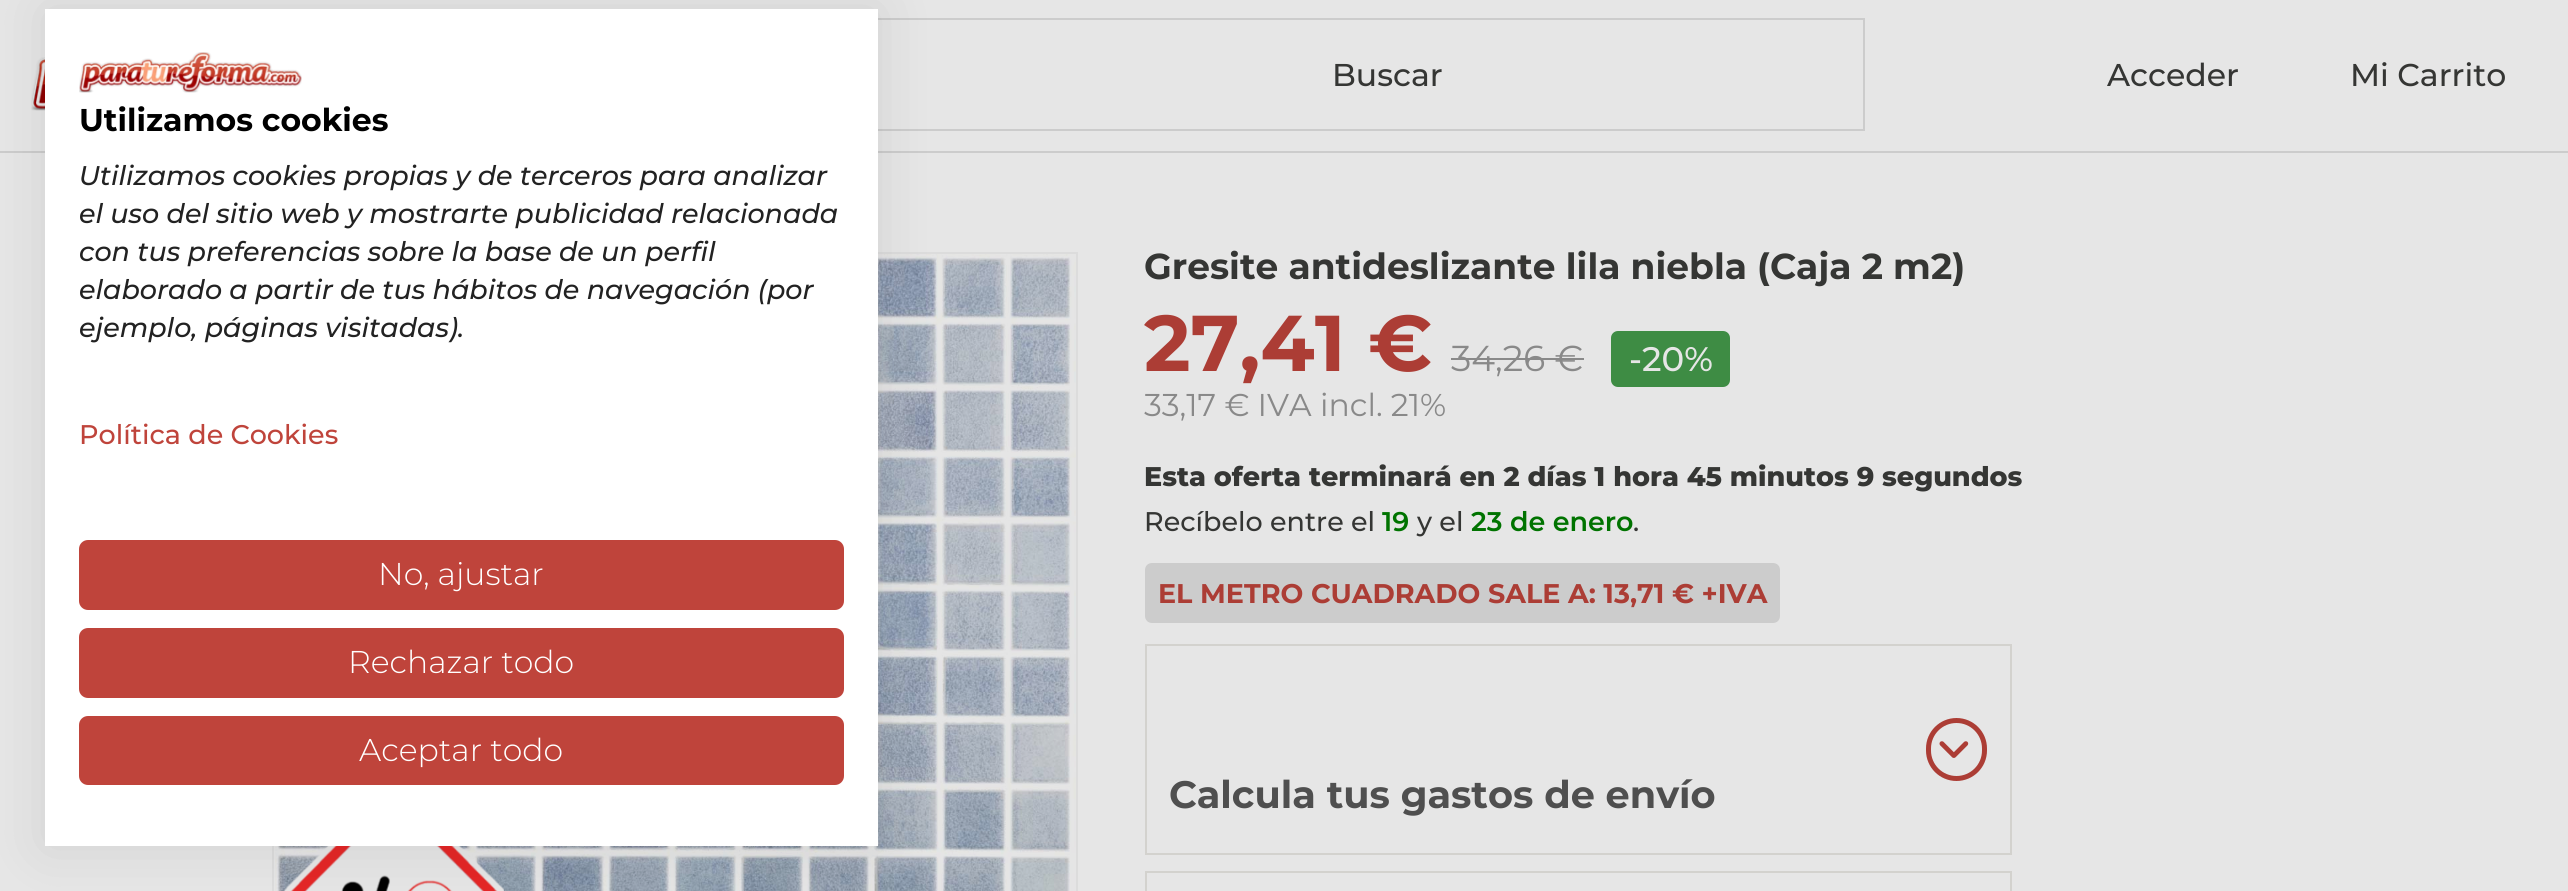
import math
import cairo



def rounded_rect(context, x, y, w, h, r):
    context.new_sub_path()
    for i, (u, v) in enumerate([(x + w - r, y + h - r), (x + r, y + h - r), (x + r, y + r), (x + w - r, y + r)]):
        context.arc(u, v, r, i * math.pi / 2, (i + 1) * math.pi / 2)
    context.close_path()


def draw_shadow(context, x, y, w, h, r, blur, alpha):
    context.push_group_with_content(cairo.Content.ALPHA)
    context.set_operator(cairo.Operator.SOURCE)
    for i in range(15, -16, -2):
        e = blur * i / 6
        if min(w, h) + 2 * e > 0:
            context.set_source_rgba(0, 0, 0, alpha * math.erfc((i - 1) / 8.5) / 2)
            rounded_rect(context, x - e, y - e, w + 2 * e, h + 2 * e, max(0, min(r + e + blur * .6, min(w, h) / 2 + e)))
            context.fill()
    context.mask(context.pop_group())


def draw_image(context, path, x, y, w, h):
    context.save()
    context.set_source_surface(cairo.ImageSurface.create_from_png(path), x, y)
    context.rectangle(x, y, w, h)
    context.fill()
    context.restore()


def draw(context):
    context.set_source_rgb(230 / 255, 230 / 255, 230 / 255)
    context.paint()
    draw_image(context, "images/2.png", 31, 57, 14, 54)
    context.rectangle(854, 19, 1010, 111)
    context.set_source_rgb(204 / 255, 204 / 255, 204 / 255)
    context.stroke()
    context.rectangle(0, 151, 2568, 2)
    context.fill()
    context.rectangle(273, 253, 804, 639)
    context.set_source_rgb(220 / 255, 220 / 255, 220 / 255)
    context.stroke()
    draw_image(context, "images/3.png", 275, 254, 801, 637)
    draw_image(context, "images/4.png", 284, 846, 220, 45)
    context.set_source_rgb(0, 0, 0)
    draw_shadow(context, 45, 9, 833, 837, 0, 27, 0.1)
    context.set_source_rgb(1, 1, 1)
    context.rectangle(45, 9, 833, 837)
    context.fill()
    draw_image(context, "images/1.png", 79, 52, 223, 41)
    context.set_source_rgb(191 / 255, 68 / 255, 59 / 255)
    rounded_rect(context, 80, 541, 763, 68, 8)
    context.fill_preserve()
    context.stroke()
    rounded_rect(context, 80, 629, 763, 68, 8)
    context.fill_preserve()
    context.stroke()
    rounded_rect(context, 80, 717, 763, 67, 8)
    context.fill_preserve()
    context.stroke()
    context.set_source_rgb(137 / 255, 137 / 255, 137 / 255)
    context.rectangle(1451, 358, 133, 2)
    context.fill()
    context.set_source_rgb(62 / 255, 140 / 255, 68 / 255)
    rounded_rect(context, 1611, 331, 119, 56, 7)
    context.fill()
    context.set_source_rgb(204 / 255, 204 / 255, 204 / 255)
    context.new_path()
    context.move_to(1152, 563)
    context.line_to(1602, 563)
    context.line_to(1602, 623)
    context.line_to(1152, 623)
    context.curve_to(1148, 623, 1145, 620, 1145, 616)
    context.line_to(1145, 570)
    context.curve_to(1145, 566, 1148, 563, 1152, 563)
    context.close_path()
    context.fill()
    context.new_path()
    context.move_to(1602, 563)
    context.line_to(1773, 563)
    context.curve_to(1777, 563, 1780, 566, 1780, 570)
    context.line_to(1780, 616)
    context.curve_to(1780, 620, 1777, 623, 1773, 623)
    context.line_to(1602, 623)
    context.close_path()
    context.fill()
    context.rectangle(1146, 645, 865, 209)
    context.set_source_rgb(211 / 255, 210 / 255, 206 / 255)
    context.stroke()
    rounded_rect(context, 1928.5, 720.5, 56, 58, 28)
    context.set_source_rgb(172 / 255, 61 / 255, 53 / 255)
    context.set_line_width(5)
    context.stroke()
    draw_image(context, "images/5.png", 1939, 741, 30, 17)
    context.rectangle(1146, 872, 865, 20)
    context.set_source_rgb(211 / 255, 210 / 255, 206 / 255)
    context.set_line_width(2)
    context.stroke()
    context.select_font_face("Montserrat", cairo.FontSlant.NORMAL, cairo.FontWeight.BOLD)
    context.set_font_size(31.5)
    context.set_source_rgb(0, 0, 0)
    context.move_to(79, 131)
    context.show_text("Utilizamos cookies")
    context.select_font_face("Montserrat Medium", cairo.FontSlant.ITALIC)
    context.set_font_size(27)
    context.set_source_rgb(34 / 255, 34 / 255, 34 / 255)
    context.move_to(79, 185)
    context.show_text("Utilizamos cookies propias y de terceros para analizar")
    context.move_to(79, 223)
    context.show_text("el uso del sitio web y mostrarte publicidad relacionada")
    context.move_to(79, 261)
    context.show_text("con tus preferencias sobre la base de un perfil")
    context.move_to(79, 299)
    context.show_text("elaborado a partir de tus hábitos de navegación (por")
    context.move_to(79, 337)
    context.show_text("ejemplo, páginas visitadas).")
    context.select_font_face("Montserrat Medium")
    context.set_source_rgb(191 / 255, 68 / 255, 59 / 255)
    context.move_to(79, 444)
    context.show_text("Política de Cookies")
    context.select_font_face("Montserrat Light")
    context.set_font_size(31.5)
    context.set_source_rgb(1, 1, 1)
    context.move_to(378, 585)
    context.show_text("No, ajustar")
    context.move_to(348, 673)
    context.show_text("Rechazar todo")
    context.move_to(359, 761)
    context.show_text("Aceptar todo")
    context.select_font_face("Montserrat Medium")
    context.set_source_rgb(53 / 255, 54 / 255, 52 / 255)
    context.move_to(1332, 86)
    context.show_text("Buscar")
    context.move_to(2107, 86)
    context.show_text("Acceder")
    context.move_to(2350, 86)
    context.show_text("Mi Carrito")
    context.select_font_face("Montserrat", cairo.FontSlant.NORMAL, cairo.FontWeight.BOLD)
    context.set_font_size(36)
    context.move_to(1144, 279)
    context.show_text("Gresite antideslizante lila niebla (Caja 2 m2)")
    context.set_font_size(79)
    context.set_source_rgb(172 / 255, 61 / 255, 53 / 255)
    context.move_to(1144, 371)
    context.show_text("27,41 €")
    context.select_font_face("Montserrat")
    context.set_font_size(36)
    context.set_source_rgb(137 / 255, 137 / 255, 137 / 255)
    context.move_to(1451, 371)
    context.show_text("34,26 €")
    context.select_font_face("Montserrat Medium")
    context.set_font_size(34)
    context.set_source_rgb(230 / 255, 230 / 255, 230 / 255)
    context.move_to(1629, 371)
    context.show_text("-20%")
    context.select_font_face("Montserrat")
    context.set_font_size(31.5)
    context.set_source_rgb(137 / 255, 137 / 255, 137 / 255)
    context.move_to(1144, 416)
    context.show_text("33,17 € IVA incl. 21%")
    context.select_font_face("Montserrat ExtraBold")
    context.set_font_size(27)
    context.set_source_rgb(53 / 255, 54 / 255, 52 / 255)
    context.move_to(1144, 486)
    context.show_text("Esta oferta terminará en 2 días 1 hora 45 minutos 9 segundos")
    context.select_font_face("Montserrat Medium")
    context.move_to(1144, 531)
    context.show_text("Recíbelo entre el")
    context.select_font_face("Montserrat SemiBold")
    context.set_source_rgb(0, 115 / 255, 0)
    context.move_to(1382, 531)
    context.show_text("19")
    context.select_font_face("Montserrat Medium")
    context.set_source_rgb(53 / 255, 54 / 255, 52 / 255)
    context.move_to(1417, 531)
    context.show_text("y el")
    context.select_font_face("Montserrat SemiBold")
    context.set_source_rgb(0, 115 / 255, 0)
    context.move_to(1471, 531)
    context.show_text("23 de enero")
    context.select_font_face("Montserrat Medium")
    context.set_source_rgb(53 / 255, 54 / 255, 52 / 255)
    context.move_to(1633, 531)
    context.show_text(".")
    context.select_font_face("Montserrat", cairo.FontSlant.NORMAL, cairo.FontWeight.BOLD)
    context.set_source_rgb(172 / 255, 61 / 255, 53 / 255)
    context.move_to(1158, 603)
    context.show_text("EL METRO CUADRADO SALE A: 13,71 € +IVA")
    context.set_font_size(38.25)
    context.set_source_rgb(79 / 255, 79 / 255, 79 / 255)
    context.move_to(1169, 808)
    context.show_text("Calcula tus gastos de envío")


surface = cairo.ImageSurface(cairo.Format.RGB24, 2568, 891)
context = cairo.Context(surface)
options = cairo.FontOptions()
options.set_hint_metrics(cairo.HintMetrics.OFF)
options.set_hint_style(cairo.HintStyle.NONE)
context.set_font_options(options)
context.set_miter_limit(4)
draw(context)
surface.write_to_png("out.png")
